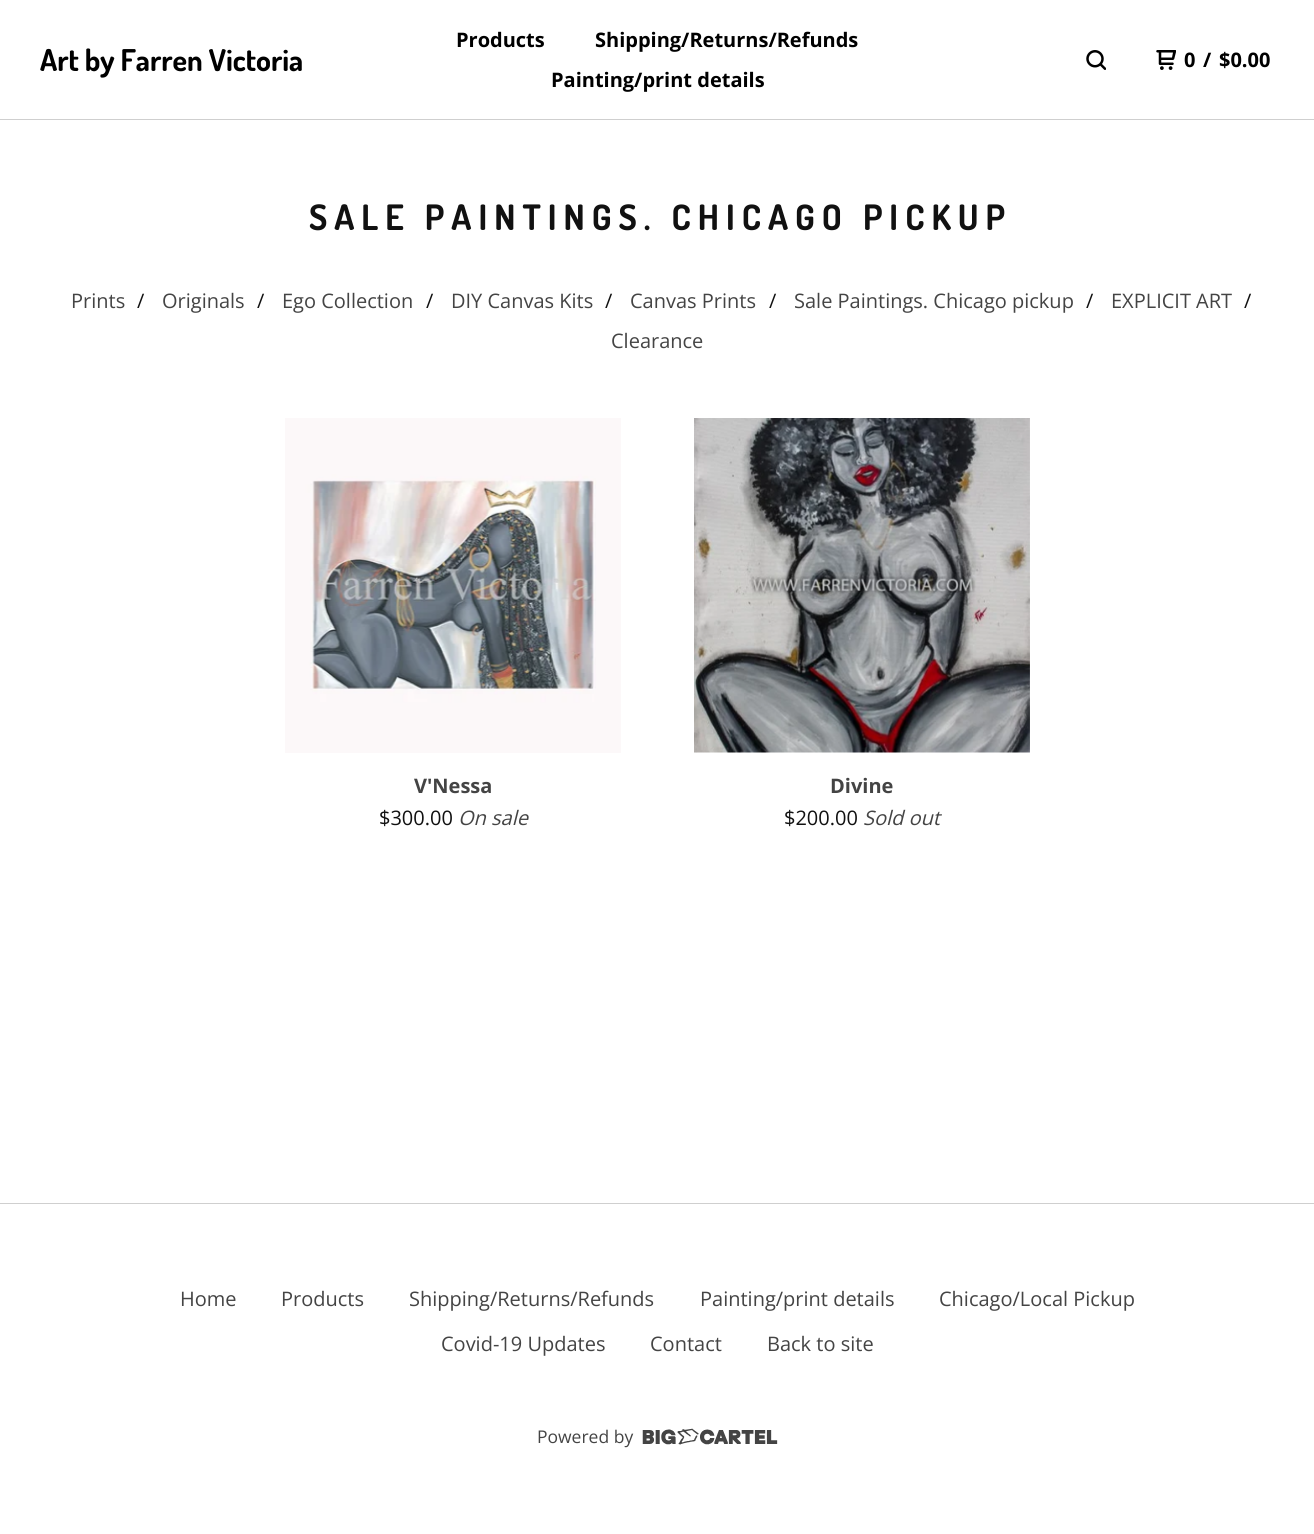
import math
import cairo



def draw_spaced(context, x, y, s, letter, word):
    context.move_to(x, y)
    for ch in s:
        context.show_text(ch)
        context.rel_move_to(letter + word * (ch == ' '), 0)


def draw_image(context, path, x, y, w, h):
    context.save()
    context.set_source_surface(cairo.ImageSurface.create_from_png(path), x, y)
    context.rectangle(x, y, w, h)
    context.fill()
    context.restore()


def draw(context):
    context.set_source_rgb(1, 1, 1)
    context.paint()
    context.set_source_rgb(207 / 255, 207 / 255, 207 / 255)
    context.rectangle(0, 119, 1314, 1)
    context.fill()
    draw_image(context, "images/1.png", 1086, 50, 20, 20)
    draw_image(context, "images/2.png", 1156, 50, 20, 20)
    draw_image(context, "images/3.png", 285, 418, 336, 335)
    draw_image(context, "images/4.png", 694, 418, 336, 335)
    context.rectangle(0, 1203, 1314, 1)
    context.fill()
    draw_image(context, "images/5.png", 642, 1428, 136, 17)
    context.select_font_face("Dosis", cairo.FontSlant.NORMAL, cairo.FontWeight.BOLD)
    context.set_font_size(30)
    context.set_source_rgb(0, 0, 0)
    context.move_to(40, 71)
    context.show_text("Art by Farren Victoria")
    context.select_font_face("Open Sans", cairo.FontSlant.NORMAL, cairo.FontWeight.BOLD)
    context.set_font_size(20)
    context.move_to(456, 47)
    context.show_text("Products")
    context.move_to(595, 47)
    context.show_text("Shipping/Returns/Refunds")
    context.move_to(551, 87)
    context.show_text("Painting/print details")
    context.move_to(1184, 67)
    context.show_text("0")
    context.move_to(1203, 67)
    context.show_text("/")
    context.move_to(1219, 67)
    context.show_text("$0.00")
    context.select_font_face("Dosis", cairo.FontSlant.NORMAL, cairo.FontWeight.BOLD)
    context.set_font_size(35)
    context.set_source_rgb(17 / 255, 17 / 255, 17 / 255)
    draw_spaced(context, 309, 230, "SALE PAINTINGS. CHICAGO PICKUP", 7, 0)
    context.select_font_face("Open Sans")
    context.set_font_size(20)
    context.set_source_rgb(68 / 255, 68 / 255, 68 / 255)
    context.move_to(71, 308)
    context.show_text("Prints")
    context.set_source_rgb(17 / 255, 17 / 255, 17 / 255)
    context.move_to(137, 308)
    context.show_text("/")
    context.set_source_rgb(68 / 255, 68 / 255, 68 / 255)
    context.move_to(162, 308)
    context.show_text("Originals")
    context.set_source_rgb(17 / 255, 17 / 255, 17 / 255)
    context.move_to(257, 308)
    context.show_text("/")
    context.set_source_rgb(68 / 255, 68 / 255, 68 / 255)
    context.move_to(282, 308)
    context.show_text("Ego Collection")
    context.set_source_rgb(17 / 255, 17 / 255, 17 / 255)
    context.move_to(426, 308)
    context.show_text("/")
    context.set_source_rgb(68 / 255, 68 / 255, 68 / 255)
    context.move_to(451, 308)
    context.show_text("DIY Canvas Kits")
    context.set_source_rgb(17 / 255, 17 / 255, 17 / 255)
    context.move_to(605, 308)
    context.show_text("/")
    context.set_source_rgb(68 / 255, 68 / 255, 68 / 255)
    context.move_to(630, 308)
    context.show_text("Canvas Prints")
    context.set_source_rgb(17 / 255, 17 / 255, 17 / 255)
    context.move_to(769, 308)
    context.show_text("/")
    context.set_source_rgb(68 / 255, 68 / 255, 68 / 255)
    context.move_to(794, 308)
    context.show_text("Sale Paintings. Chicago pickup")
    context.set_source_rgb(17 / 255, 17 / 255, 17 / 255)
    context.move_to(1086, 308)
    context.show_text("/")
    context.set_source_rgb(68 / 255, 68 / 255, 68 / 255)
    context.move_to(1111, 308)
    context.show_text("EXPLICIT ART")
    context.set_source_rgb(17 / 255, 17 / 255, 17 / 255)
    context.move_to(1244, 308)
    context.show_text("/")
    context.set_source_rgb(68 / 255, 68 / 255, 68 / 255)
    context.move_to(611, 348)
    context.show_text("Clearance")
    context.select_font_face("Open Sans", cairo.FontSlant.NORMAL, cairo.FontWeight.BOLD)
    context.move_to(414, 793)
    context.show_text("V'Nessa")
    context.select_font_face("Open Sans")
    context.set_source_rgb(17 / 255, 17 / 255, 17 / 255)
    context.move_to(379, 825)
    context.show_text("$300.00")
    context.select_font_face("Open Sans", cairo.FontSlant.ITALIC)
    context.set_source_rgb(68 / 255, 68 / 255, 68 / 255)
    context.move_to(458, 825)
    context.show_text("On sale")
    context.select_font_face("Open Sans", cairo.FontSlant.NORMAL, cairo.FontWeight.BOLD)
    context.move_to(830, 793)
    context.show_text("Divine")
    context.select_font_face("Open Sans")
    context.set_source_rgb(17 / 255, 17 / 255, 17 / 255)
    context.move_to(784, 825)
    context.show_text("$200.00")
    context.select_font_face("Open Sans", cairo.FontSlant.ITALIC)
    context.set_source_rgb(68 / 255, 68 / 255, 68 / 255)
    context.move_to(863, 825)
    context.show_text("Sold out")
    context.select_font_face("Open Sans")
    context.move_to(180, 1306)
    context.show_text("Home")
    context.move_to(281, 1306)
    context.show_text("Products")
    context.move_to(409, 1306)
    context.show_text("Shipping/Returns/Refunds")
    context.move_to(700, 1306)
    context.show_text("Painting/print details")
    context.move_to(939, 1306)
    context.show_text("Chicago/Local Pickup")
    context.move_to(441, 1351)
    context.show_text("Covid-19 Updates")
    context.move_to(650, 1351)
    context.show_text("Contact")
    context.move_to(767, 1351)
    context.show_text("Back to site")
    context.set_font_size(17.5)
    context.move_to(537, 1443)
    context.show_text("Powered by")


surface = cairo.ImageSurface(cairo.Format.RGB24, 1314, 1534)
context = cairo.Context(surface)
options = cairo.FontOptions()
options.set_hint_metrics(cairo.HintMetrics.OFF)
options.set_hint_style(cairo.HintStyle.NONE)
context.set_font_options(options)
context.set_miter_limit(4)
draw(context)
surface.write_to_png("out.png")
